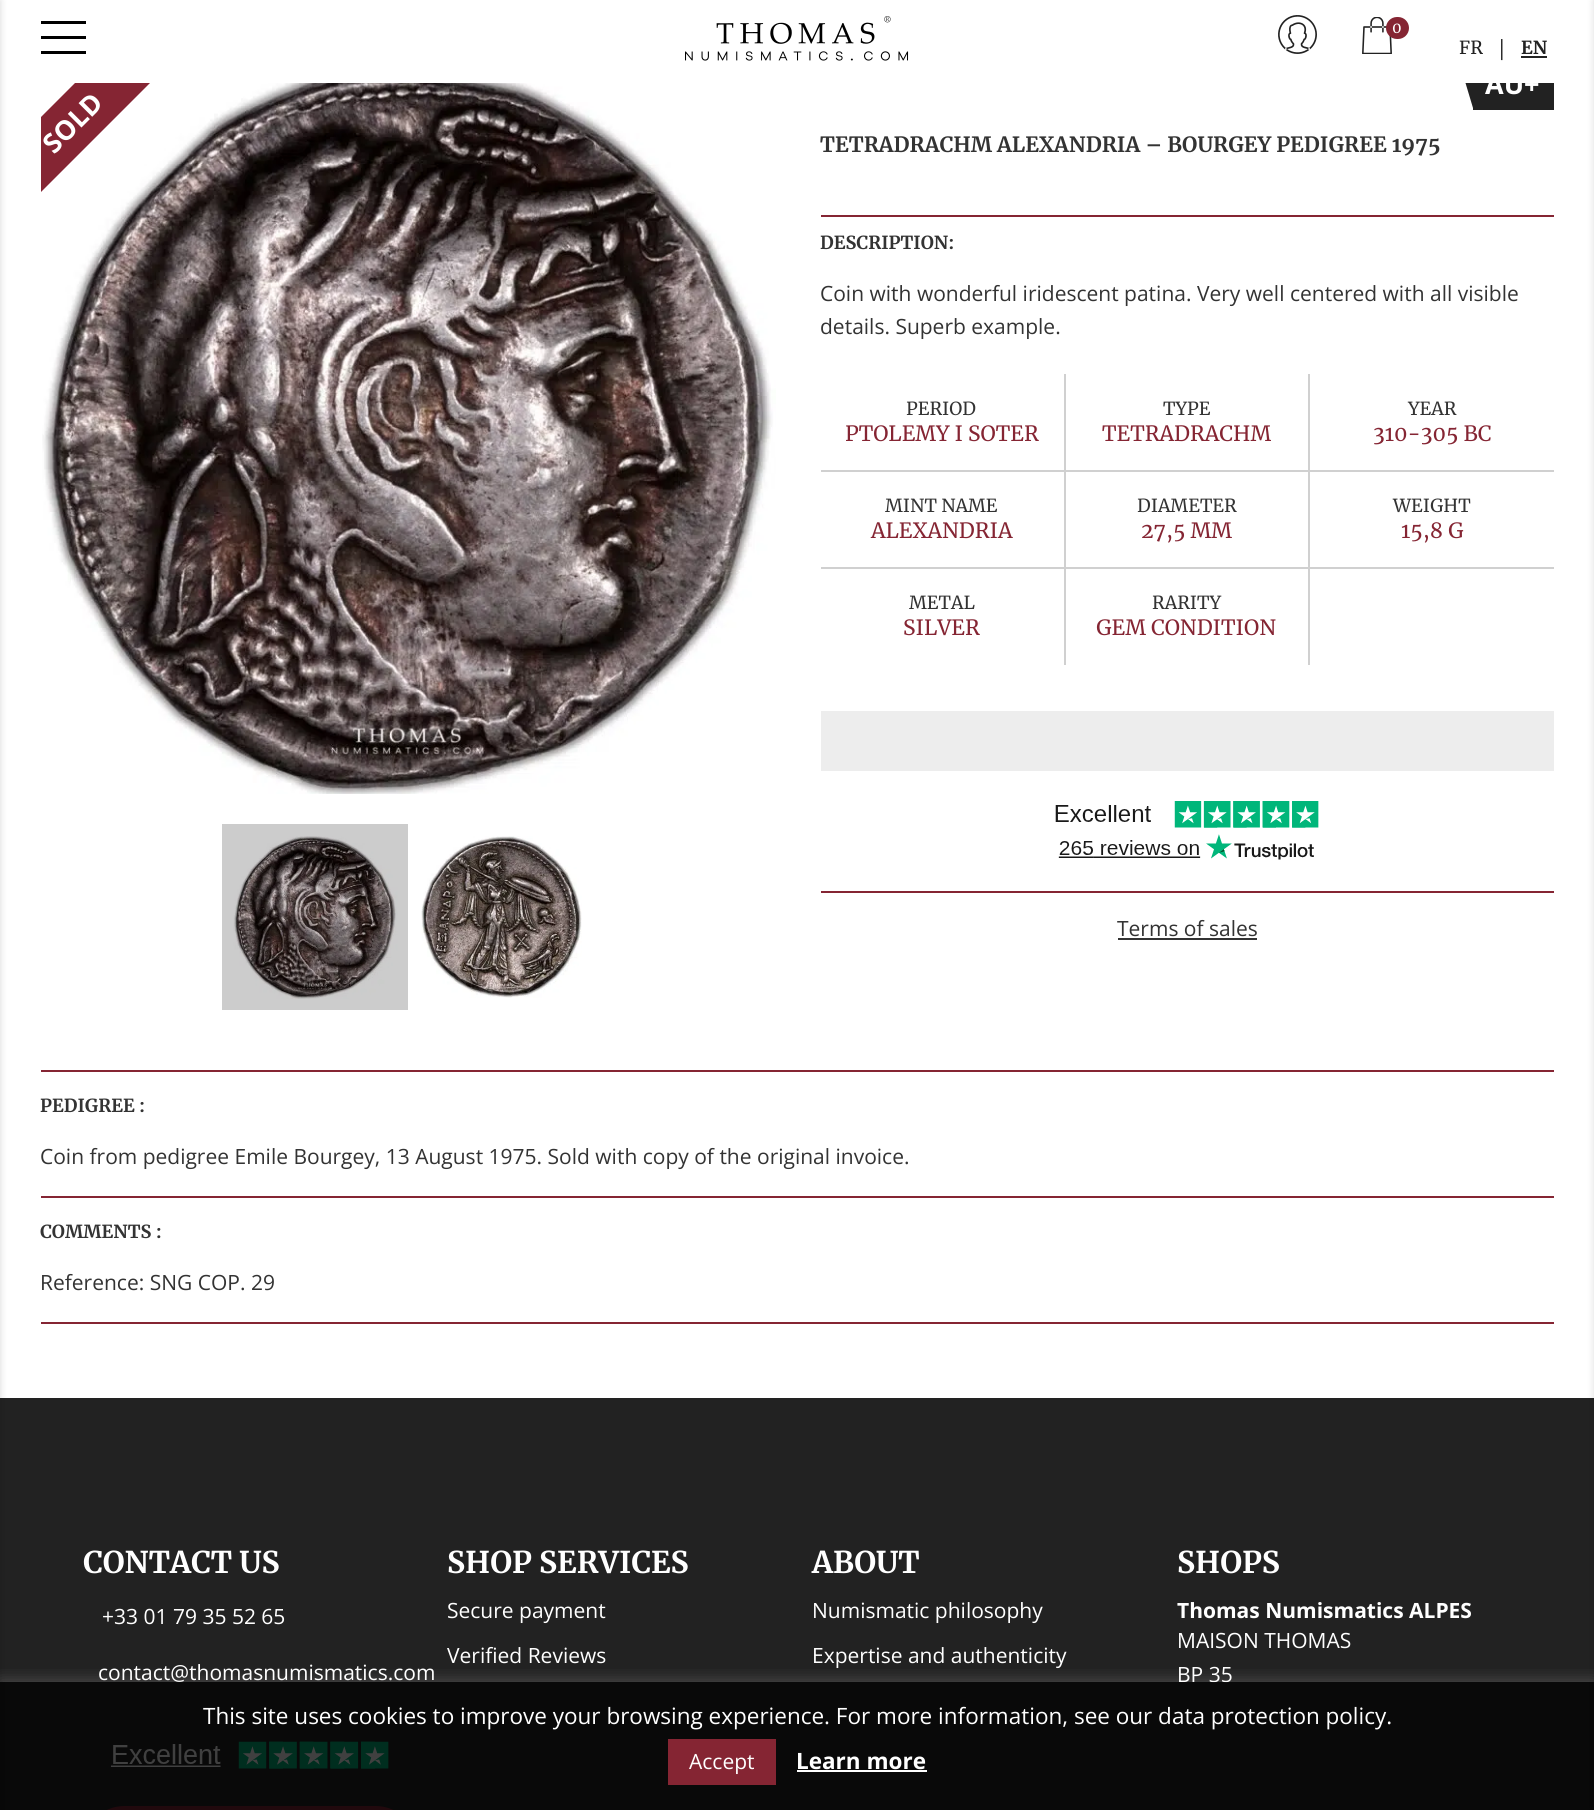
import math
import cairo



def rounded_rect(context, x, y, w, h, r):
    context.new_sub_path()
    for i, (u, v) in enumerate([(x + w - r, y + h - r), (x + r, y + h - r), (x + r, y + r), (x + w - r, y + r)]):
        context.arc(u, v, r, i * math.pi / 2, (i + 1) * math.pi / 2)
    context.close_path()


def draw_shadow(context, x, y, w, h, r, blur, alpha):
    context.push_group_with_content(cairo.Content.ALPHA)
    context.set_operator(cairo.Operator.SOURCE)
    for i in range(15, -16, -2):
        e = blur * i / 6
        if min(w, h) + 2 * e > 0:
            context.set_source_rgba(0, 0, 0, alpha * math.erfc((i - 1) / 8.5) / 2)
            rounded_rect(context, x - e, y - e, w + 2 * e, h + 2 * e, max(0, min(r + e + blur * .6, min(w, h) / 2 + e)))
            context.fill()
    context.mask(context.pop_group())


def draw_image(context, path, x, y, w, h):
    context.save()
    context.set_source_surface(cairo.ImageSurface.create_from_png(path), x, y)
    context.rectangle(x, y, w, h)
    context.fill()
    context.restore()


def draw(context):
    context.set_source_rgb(1, 1, 1)
    context.paint()
    context.set_source_rgb(204 / 255, 204 / 255, 204 / 255)
    context.rectangle(222, 824, 186, 186)
    context.fill()
    context.set_source_rgb(34 / 255, 34 / 255, 34 / 255)
    context.rectangle(0, 1398, 1594, 412)
    context.fill()
    context.set_source_rgb(0, 0, 0)
    draw_shadow(context, -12, 0, 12, 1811, 0, 4, 0.15)
    draw_image(context, "images/4.png", 42, 83, 734, 711)
    context.save()
    context.rectangle(41, 59, 757, 951)
    context.clip()
    context.set_source_rgb(133 / 255, 37 / 255, 51 / 255)
    context.new_path()
    context.move_to(-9, 167)
    context.line_to(116, 42)
    context.line_to(154, 79)
    context.line_to(29, 204)
    context.close_path()
    context.fill()
    context.restore()
    context.set_source_rgb(34 / 255, 34 / 255, 34 / 255)
    context.new_path()
    context.move_to(1458, 58)
    context.line_to(1473, 58)
    context.line_to(1473, 108)
    context.close_path()
    context.fill()
    context.set_source_rgb(1, 1, 1)
    context.rectangle(75, 58, 1398, 25)
    context.fill()
    context.set_source_rgb(0, 0, 0)
    context.rectangle(41, 21, 45, 3)
    context.fill()
    context.rectangle(41, 36, 45, 3)
    context.fill()
    context.rectangle(41, 51, 45, 3)
    context.fill()
    draw_image(context, "images/1.png", 685, 16, 224, 45)
    draw_image(context, "images/2.png", 1278, 15, 39, 39)
    draw_image(context, "images/3.png", 1362, 17, 30, 37)
    context.set_source_rgb(133 / 255, 37 / 255, 51 / 255)
    rounded_rect(context, 1386, 17, 23, 22, 11)
    context.fill()
    context.set_source_rgb(0, 0, 0)
    draw_shadow(context, 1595, 0, 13, 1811, 0, 4.5, 0.16)
    context.set_source_rgb(34 / 255, 34 / 255, 34 / 255)
    context.rectangle(1521, 56, 26, 2)
    context.fill()
    draw_image(context, "images/5.png", 233, 836, 165, 163)
    draw_image(context, "images/6.png", 421, 836, 161, 162)
    context.rectangle(1473, 83, 81, 27)
    context.fill()
    context.set_source_rgb(133 / 255, 37 / 255, 51 / 255)
    context.rectangle(821, 215, 733, 2)
    context.fill()
    context.set_source_rgb(208 / 255, 208 / 255, 208 / 255)
    context.rectangle(1064, 374, 2, 97)
    context.fill()
    context.rectangle(821, 470, 244, 2)
    context.fill()
    context.rectangle(1308, 374, 2, 97)
    context.fill()
    context.rectangle(1065, 470, 489, 2)
    context.fill()
    context.rectangle(1064, 471, 2, 195)
    context.fill()
    context.rectangle(821, 567, 244, 2)
    context.fill()
    context.rectangle(1308, 471, 2, 195)
    context.fill()
    context.rectangle(1065, 567, 489, 2)
    context.fill()
    context.set_source_rgb(1, 1, 1)
    context.rectangle(1064, 665, 246, 1)
    context.fill()
    context.set_source_rgb(237 / 255, 237 / 255, 237 / 255)
    context.rectangle(821, 711, 733, 60)
    context.fill()
    draw_image(context, "images/7.png", 1055, 801, 264, 59)
    context.set_source_rgb(133 / 255, 37 / 255, 51 / 255)
    context.rectangle(821, 891, 733, 2)
    context.fill()
    context.set_source_rgb(51 / 255, 51 / 255, 51 / 255)
    context.rectangle(1118, 938, 139, 2)
    context.fill()
    context.set_source_rgb(133 / 255, 37 / 255, 51 / 255)
    context.rectangle(41, 1070, 1513, 2)
    context.fill()
    context.rectangle(41, 1196, 1513, 2)
    context.fill()
    context.rectangle(41, 1322, 1513, 2)
    context.fill()
    draw_image(context, "images/8.png", 110, 1741, 279, 28)
    rounded_rect(context, 83, 1806, 334, 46, 41.5)
    context.fill()
    context.save()
    context.rectangle(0, 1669, 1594, 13)
    context.clip()
    context.set_source_rgb(172 / 255, 171 / 255, 171 / 255)
    draw_shadow(context, 0, 1680, 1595, 129, 0, 7.5, 0.3)
    context.restore()
    context.select_font_face("Merriweather")
    context.set_font_size(15)
    context.set_source_rgb(1, 1, 1)
    context.move_to(1392, 33)
    context.show_text("0")
    context.set_font_size(18)
    context.set_source_rgb(34 / 255, 34 / 255, 34 / 255)
    context.move_to(1459, 54)
    context.show_text("FR")
    context.select_font_face("Open Sans")
    context.set_font_size(21)
    context.move_to(1496, 55)
    context.show_text("|")
    context.select_font_face("Merriweather", cairo.FontSlant.NORMAL, cairo.FontWeight.BOLD)
    context.set_font_size(18)
    context.move_to(1521, 54)
    context.show_text("EN")
    context.select_font_face("Open Sans", cairo.FontSlant.NORMAL, cairo.FontWeight.BOLD)
    context.set_font_size(27)
    context.set_source_rgb(1, 1, 1)
    context.save()
    context.translate(54, 155)
    context.rotate(-45 * math.pi / 180)
    context.move_to(0, 0)
    context.show_text("SOLD")
    context.restore()
    context.move_to(1485, 94)
    context.show_text("AU+")
    context.select_font_face("Merriweather", cairo.FontSlant.NORMAL, cairo.FontWeight.BOLD)
    context.set_font_size(21)
    context.set_source_rgb(51 / 255, 51 / 255, 51 / 255)
    context.move_to(820, 152)
    context.show_text("TETRADRACHM ALEXANDRIA – BOURGEY PEDIGREE 1975")
    context.set_font_size(18)
    context.move_to(820, 249)
    context.show_text("DESCRIPTION:")
    context.select_font_face("Open Sans")
    context.set_font_size(21)
    context.move_to(820, 301)
    context.show_text("Coin with wonderful iridescent patina. Very well centered with all visible")
    context.move_to(820, 334)
    context.show_text("details. Superb example.")
    context.select_font_face("Merriweather")
    context.set_font_size(18)
    context.move_to(906, 415)
    context.show_text("PERIOD")
    context.set_font_size(21)
    context.set_source_rgb(133 / 255, 37 / 255, 51 / 255)
    context.move_to(845, 441)
    context.show_text("PTOLEMY I SOTER")
    context.set_font_size(18)
    context.set_source_rgb(51 / 255, 51 / 255, 51 / 255)
    context.move_to(1163, 415)
    context.show_text("TYPE")
    context.set_font_size(21)
    context.set_source_rgb(133 / 255, 37 / 255, 51 / 255)
    context.move_to(1102, 441)
    context.show_text("TETRADRACHM")
    context.set_font_size(18)
    context.set_source_rgb(51 / 255, 51 / 255, 51 / 255)
    context.move_to(1408, 415)
    context.show_text("YEAR")
    context.set_font_size(21)
    context.set_source_rgb(133 / 255, 37 / 255, 51 / 255)
    context.move_to(1373, 441)
    context.show_text("310-305 BC")
    context.set_font_size(18)
    context.set_source_rgb(51 / 255, 51 / 255, 51 / 255)
    context.move_to(885, 512)
    context.show_text("MINT NAME")
    context.set_font_size(21)
    context.set_source_rgb(133 / 255, 37 / 255, 51 / 255)
    context.move_to(871, 538)
    context.show_text("ALEXANDRIA")
    context.set_font_size(18)
    context.set_source_rgb(51 / 255, 51 / 255, 51 / 255)
    context.move_to(1137, 512)
    context.show_text("DIAMETER")
    context.set_font_size(21)
    context.set_source_rgb(133 / 255, 37 / 255, 51 / 255)
    context.move_to(1141, 538)
    context.show_text("27,5 MM")
    context.set_font_size(18)
    context.set_source_rgb(51 / 255, 51 / 255, 51 / 255)
    context.move_to(1393, 512)
    context.show_text("WEIGHT")
    context.set_font_size(21)
    context.set_source_rgb(133 / 255, 37 / 255, 51 / 255)
    context.move_to(1401, 538)
    context.show_text("15,8 G")
    context.set_font_size(18)
    context.set_source_rgb(51 / 255, 51 / 255, 51 / 255)
    context.move_to(909, 609)
    context.show_text("METAL")
    context.set_font_size(21)
    context.set_source_rgb(133 / 255, 37 / 255, 51 / 255)
    context.move_to(903, 635)
    context.show_text("SILVER")
    context.set_font_size(18)
    context.set_source_rgb(51 / 255, 51 / 255, 51 / 255)
    context.move_to(1152, 609)
    context.show_text("RARITY")
    context.set_font_size(21)
    context.set_source_rgb(133 / 255, 37 / 255, 51 / 255)
    context.move_to(1096, 635)
    context.show_text("GEM CONDITION")
    context.select_font_face("Open Sans")
    context.set_source_rgb(51 / 255, 51 / 255, 51 / 255)
    context.move_to(1117, 936)
    context.show_text("Terms of sales")
    context.select_font_face("Merriweather", cairo.FontSlant.NORMAL, cairo.FontWeight.BOLD)
    context.set_font_size(18)
    context.move_to(40, 1112)
    context.show_text("PEDIGREE :")
    context.select_font_face("Open Sans")
    context.set_font_size(21)
    context.move_to(40, 1164)
    context.show_text("Coin from pedigree Emile Bourgey, 13 August 1975. Sold with copy of the original invoice.")
    context.select_font_face("Merriweather", cairo.FontSlant.NORMAL, cairo.FontWeight.BOLD)
    context.set_font_size(18)
    context.move_to(40, 1238)
    context.show_text("COMMENTS :")
    context.select_font_face("Open Sans")
    context.set_font_size(21)
    context.move_to(40, 1290)
    context.show_text("Reference: SNG COP. 29")
    context.select_font_face("Merriweather", cairo.FontSlant.NORMAL, cairo.FontWeight.BOLD)
    context.set_font_size(30)
    context.set_source_rgb(1, 1, 1)
    context.move_to(83, 1573)
    context.show_text("CONTACT US")
    context.select_font_face("Open Sans")
    context.set_font_size(21)
    context.move_to(102, 1624)
    context.show_text("+33 01 79 35 52 65")
    context.move_to(98, 1680)
    context.show_text("contact@thomasnumismatics.com")
    context.select_font_face("Merriweather", cairo.FontSlant.NORMAL, cairo.FontWeight.BOLD)
    context.set_font_size(30)
    context.move_to(447, 1573)
    context.show_text("SHOP SERVICES")
    context.select_font_face("Open Sans")
    context.set_font_size(21)
    context.move_to(447, 1618)
    context.show_text("Secure payment")
    context.move_to(447, 1663)
    context.show_text("Verified Reviews")
    context.select_font_face("Merriweather", cairo.FontSlant.NORMAL, cairo.FontWeight.BOLD)
    context.set_font_size(30)
    context.move_to(812, 1573)
    context.show_text("ABOUT")
    context.select_font_face("Open Sans")
    context.set_font_size(21)
    context.move_to(812, 1618)
    context.show_text("Numismatic philosophy")
    context.move_to(812, 1663)
    context.show_text("Expertise and authenticity")
    context.select_font_face("Merriweather", cairo.FontSlant.NORMAL, cairo.FontWeight.BOLD)
    context.set_font_size(30)
    context.move_to(1177, 1573)
    context.show_text("SHOPS")
    context.select_font_face("Open Sans", cairo.FontSlant.NORMAL, cairo.FontWeight.BOLD)
    context.set_font_size(21)
    context.move_to(1177, 1618)
    context.show_text("Thomas Numismatics ALPES")
    context.select_font_face("Open Sans")
    context.move_to(1177, 1648)
    context.show_text("MAISON THOMAS")
    context.move_to(1177, 1682)
    context.show_text("BP 35")
    context.set_source_rgba(0, 0, 0, 0.75)
    context.rectangle(0, 1682, 1594, 128)
    context.fill()
    context.set_font_size(22.5)
    context.set_source_rgb(1, 1, 1)
    context.move_to(203, 1724)
    context.show_text("This site uses cookies to improve your browsing experience. For more information, see our data protection policy.")
    context.set_source_rgb(133 / 255, 37 / 255, 51 / 255)
    context.rectangle(668, 1739, 108, 46)
    context.fill()
    context.set_font_size(21)
    context.set_source_rgb(1, 1, 1)
    context.move_to(689, 1769)
    context.show_text("Accept")
    context.select_font_face("Open Sans", cairo.FontSlant.NORMAL, cairo.FontWeight.BOLD)
    context.set_font_size(22.5)
    context.move_to(796, 1769)
    context.show_text("Learn more")
    context.rectangle(797, 1770, 130, 2)
    context.fill()


surface = cairo.ImageSurface(cairo.Format.RGB24, 1594, 1810)
context = cairo.Context(surface)
options = cairo.FontOptions()
options.set_hint_metrics(cairo.HintMetrics.OFF)
options.set_hint_style(cairo.HintStyle.NONE)
context.set_font_options(options)
context.set_miter_limit(4)
draw(context)
surface.write_to_png("out.png")
